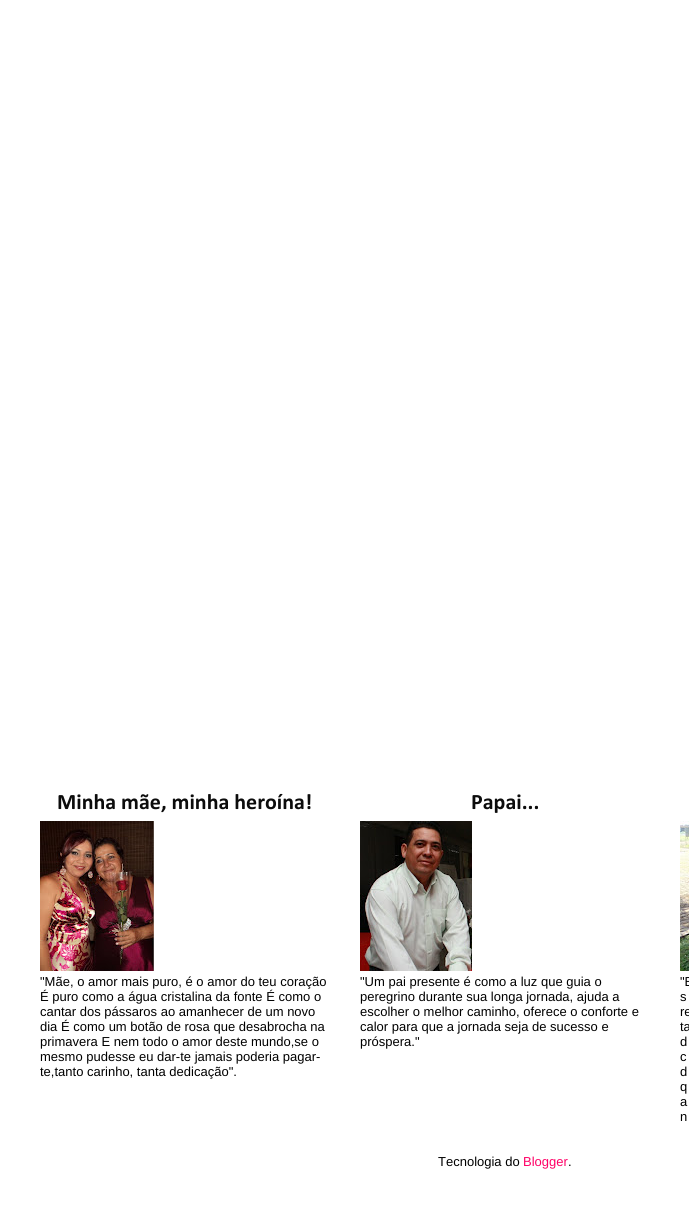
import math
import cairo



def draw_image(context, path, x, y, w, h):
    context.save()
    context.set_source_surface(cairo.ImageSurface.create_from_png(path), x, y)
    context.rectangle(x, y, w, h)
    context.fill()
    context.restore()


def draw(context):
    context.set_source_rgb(1, 1, 1)
    context.paint()
    draw_image(context, "images/1.png", 40, 821, 114, 150)
    draw_image(context, "images/2.png", 360, 821, 112, 150)
    draw_image(context, "images/3.png", 680, 821, 9, 150)
    context.select_font_face("Calibri", cairo.FontSlant.NORMAL, cairo.FontWeight.BOLD)
    context.set_font_size(22)
    context.set_source_rgb(12 / 255, 12 / 255, 12 / 255)
    context.move_to(57, 809)
    context.show_text("Minha mãe, minha heroína!")
    context.select_font_face("Liberation Sans")
    context.set_font_size(13)
    context.set_source_rgb(0, 0, 0)
    context.move_to(40, 986)
    context.show_text("\"Mãe, o amor mais puro, é o amor do teu coração")
    context.move_to(40, 1001)
    context.show_text("É puro como a água cristalina da fonte É como o")
    context.move_to(40, 1016)
    context.show_text("cantar dos pássaros ao amanhecer de um novo")
    context.move_to(40, 1031)
    context.show_text("dia É como um botão de rosa que desabrocha na")
    context.move_to(40, 1046)
    context.show_text("primavera E nem todo o amor deste mundo,se o")
    context.move_to(40, 1061)
    context.show_text("mesmo pudesse eu dar-te jamais poderia pagar-")
    context.move_to(40, 1076)
    context.show_text("te,tanto carinho, tanta dedicação\".")
    context.select_font_face("Calibri", cairo.FontSlant.NORMAL, cairo.FontWeight.BOLD)
    context.set_font_size(22)
    context.set_source_rgb(12 / 255, 12 / 255, 12 / 255)
    context.move_to(471, 809)
    context.show_text("Papai...")
    context.select_font_face("Liberation Sans")
    context.set_font_size(13)
    context.set_source_rgb(0, 0, 0)
    context.move_to(360, 986)
    context.show_text("\"Um pai presente é como a luz que guia o")
    context.move_to(360, 1001)
    context.show_text("peregrino durante sua longa jornada, ajuda a")
    context.move_to(360, 1016)
    context.show_text("escolher o melhor caminho, oferece o conforte e")
    context.move_to(360, 1031)
    context.show_text("calor para que a jornada seja de sucesso e")
    context.move_to(360, 1046)
    context.show_text("próspera.\"")
    context.move_to(680, 986)
    context.show_text("\"E")
    context.move_to(680, 1001)
    context.show_text("s")
    context.move_to(680, 1016)
    context.show_text("re")
    context.move_to(680, 1031)
    context.show_text("ta")
    context.move_to(680, 1046)
    context.show_text("d")
    context.move_to(680, 1061)
    context.show_text("c")
    context.move_to(680, 1076)
    context.show_text("d")
    context.move_to(680, 1091)
    context.show_text("q")
    context.move_to(680, 1106)
    context.show_text("a")
    context.move_to(680, 1121)
    context.show_text("n")
    context.move_to(438, 1166)
    context.show_text("Tecnologia do")
    context.set_source_rgb(1, 0, 102 / 255)
    context.move_to(523, 1166)
    context.show_text("Blogger")
    context.set_source_rgb(0, 0, 0)
    context.move_to(568, 1166)
    context.show_text(".")


surface = cairo.ImageSurface(cairo.Format.RGB24, 689, 1209)
context = cairo.Context(surface)
options = cairo.FontOptions()
options.set_hint_metrics(cairo.HintMetrics.OFF)
options.set_hint_style(cairo.HintStyle.NONE)
context.set_font_options(options)
context.set_miter_limit(4)
draw(context)
surface.write_to_png("out.png")
